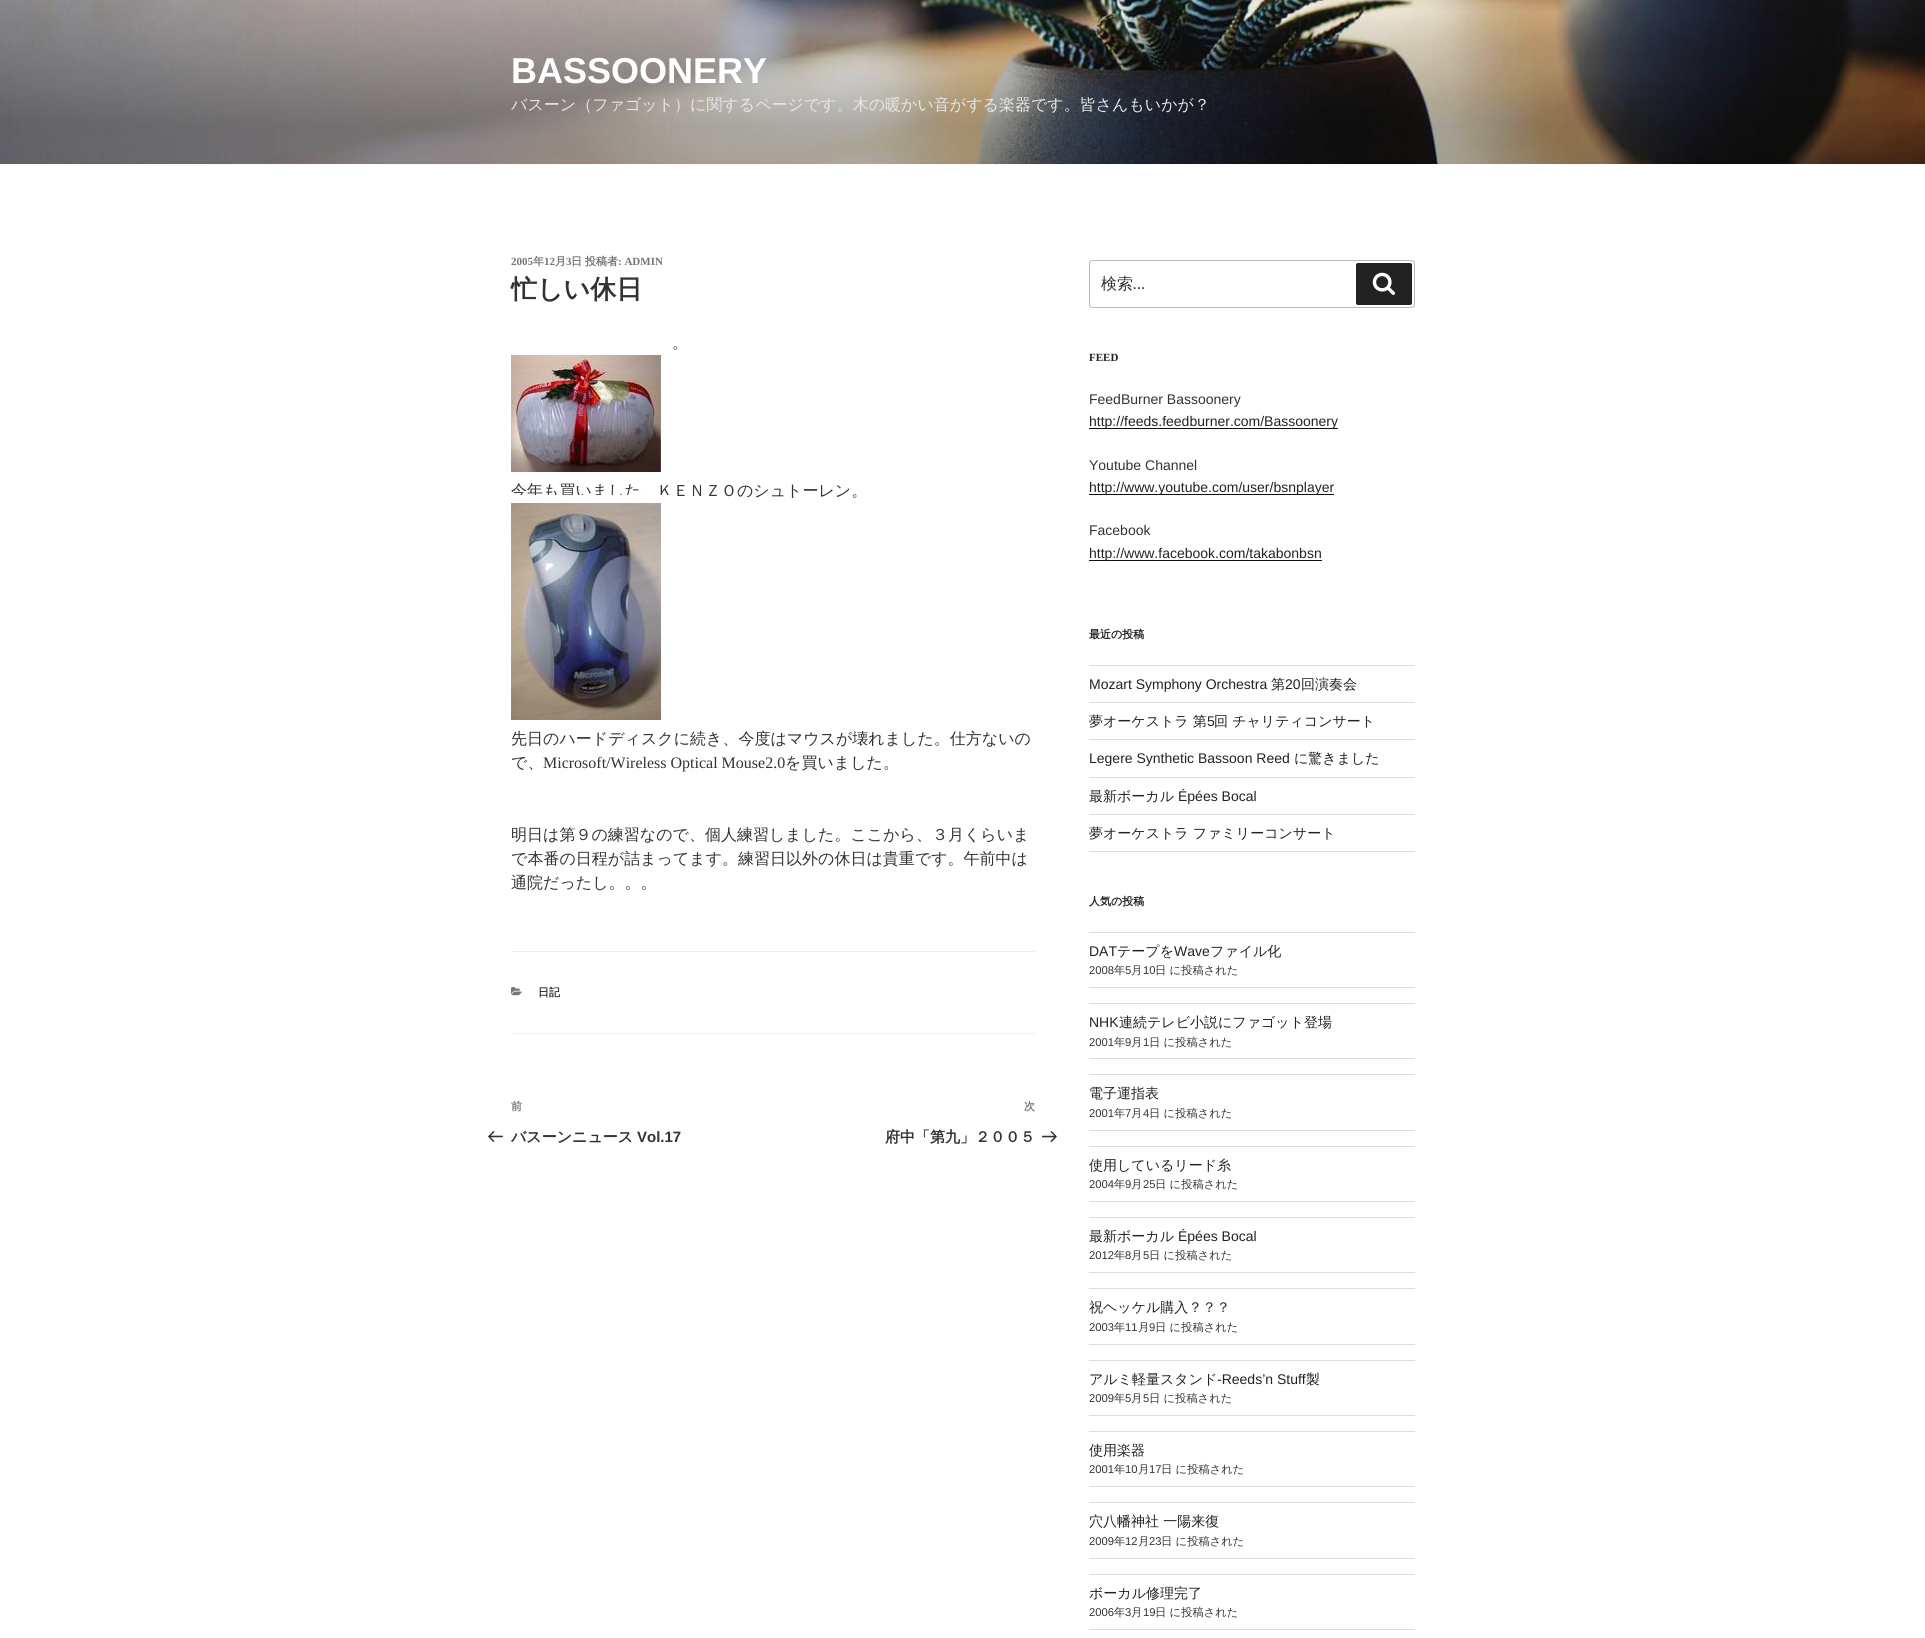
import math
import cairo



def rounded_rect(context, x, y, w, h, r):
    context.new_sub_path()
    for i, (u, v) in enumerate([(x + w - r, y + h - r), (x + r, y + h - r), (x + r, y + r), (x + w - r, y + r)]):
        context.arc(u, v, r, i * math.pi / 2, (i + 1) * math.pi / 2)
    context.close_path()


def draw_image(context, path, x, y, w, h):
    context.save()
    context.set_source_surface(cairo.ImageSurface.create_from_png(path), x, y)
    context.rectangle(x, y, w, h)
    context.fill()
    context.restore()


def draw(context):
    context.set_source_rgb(1, 1, 1)
    context.paint()
    context.set_source_rgb(250 / 255, 250 / 255, 250 / 255)
    context.rectangle(0, 164, 1925, 1)
    context.fill()
    draw_image(context, "images/1.png", 0, 0, 1925, 164)
    draw_image(context, "images/2.png", 511, 355, 150, 117)
    context.set_source_rgb(238 / 255, 238 / 255, 238 / 255)
    context.rectangle(511, 951, 524, 1)
    context.fill()
    context.rectangle(511, 1033, 524, 1)
    context.fill()
    draw_image(context, "images/4.png", 511, 987, 11, 9)
    draw_image(context, "images/5.png", 488, 1131, 15, 11)
    draw_image(context, "images/6.png", 1042, 1131, 15, 12)
    rounded_rect(context, 1089.5, 260.5, 325, 47, 2.5)
    context.set_source_rgb(187 / 255, 187 / 255, 187 / 255)
    context.set_line_width(1)
    context.stroke()
    context.set_source_rgb(34 / 255, 34 / 255, 34 / 255)
    rounded_rect(context, 1356, 263, 56, 42, 2)
    context.fill()
    draw_image(context, "images/7.png", 1372, 272, 23, 23)
    context.set_source_rgb(15 / 255, 15 / 255, 15 / 255)
    context.rectangle(1089, 428, 249, 1)
    context.fill()
    context.rectangle(1089, 494, 245, 1)
    context.fill()
    context.rectangle(1089, 560, 233, 1)
    context.fill()
    context.set_source_rgb(221 / 255, 221 / 255, 221 / 255)
    context.rectangle(1089, 665, 326, 1)
    context.fill()
    context.rectangle(1089, 702, 326, 1)
    context.fill()
    context.rectangle(1089, 739, 326, 1)
    context.fill()
    context.rectangle(1089, 777, 326, 1)
    context.fill()
    context.rectangle(1089, 814, 326, 1)
    context.fill()
    context.rectangle(1089, 851, 326, 1)
    context.fill()
    context.rectangle(1089, 932, 326, 1)
    context.fill()
    context.rectangle(1089, 987, 326, 1)
    context.fill()
    context.rectangle(1089, 1003, 326, 1)
    context.fill()
    context.rectangle(1089, 1058, 326, 1)
    context.fill()
    context.rectangle(1089, 1074, 326, 1)
    context.fill()
    context.rectangle(1089, 1130, 326, 1)
    context.fill()
    context.rectangle(1089, 1146, 326, 1)
    context.fill()
    context.rectangle(1089, 1201, 326, 1)
    context.fill()
    context.rectangle(1089, 1217, 326, 1)
    context.fill()
    context.rectangle(1089, 1272, 326, 1)
    context.fill()
    context.rectangle(1089, 1288, 326, 1)
    context.fill()
    context.rectangle(1089, 1344, 326, 1)
    context.fill()
    context.rectangle(1089, 1360, 326, 1)
    context.fill()
    context.rectangle(1089, 1415, 326, 1)
    context.fill()
    context.rectangle(1089, 1431, 326, 1)
    context.fill()
    context.rectangle(1089, 1486, 326, 1)
    context.fill()
    context.rectangle(1089, 1502, 326, 1)
    context.fill()
    context.rectangle(1089, 1558, 326, 1)
    context.fill()
    context.rectangle(1089, 1574, 326, 1)
    context.fill()
    context.rectangle(1089, 1629, 326, 1)
    context.fill()
    context.select_font_face("Liberation Sans", cairo.FontSlant.NORMAL, cairo.FontWeight.BOLD)
    context.set_font_size(36)
    context.set_source_rgb(1, 1, 1)
    context.move_to(511, 83)
    context.show_text("BASSOONERY")
    context.select_font_face("WenQuanYi Zen Hei Medium")
    context.set_font_size(16)
    context.set_source_rgb(232 / 255, 231 / 255, 230 / 255)
    context.move_to(511, 110)
    context.show_text("バスーン（ファゴット）に関するページです。木の暖かい音がする楽器です。皆さんもいかが？")
    context.select_font_face("Liberation Serif", cairo.FontSlant.NORMAL, cairo.FontWeight.BOLD)
    context.set_font_size(11)
    context.set_source_rgb(118 / 255, 118 / 255, 118 / 255)
    context.move_to(511, 265)
    context.show_text("2005")
    context.select_font_face("WenQuanYi Zen Hei", cairo.FontSlant.NORMAL, cairo.FontWeight.BOLD)
    context.move_to(533, 265)
    context.show_text("年")
    context.select_font_face("Liberation Serif", cairo.FontSlant.NORMAL, cairo.FontWeight.BOLD)
    context.move_to(544, 265)
    context.show_text("12")
    context.select_font_face("WenQuanYi Zen Hei", cairo.FontSlant.NORMAL, cairo.FontWeight.BOLD)
    context.move_to(555, 265)
    context.show_text("月")
    context.select_font_face("Liberation Serif", cairo.FontSlant.NORMAL, cairo.FontWeight.BOLD)
    context.move_to(566, 265)
    context.show_text("3")
    context.select_font_face("WenQuanYi Zen Hei", cairo.FontSlant.NORMAL, cairo.FontWeight.BOLD)
    context.move_to(571, 265)
    context.show_text("日")
    context.move_to(585, 265)
    context.show_text("投稿者")
    context.select_font_face("Liberation Serif", cairo.FontSlant.NORMAL, cairo.FontWeight.BOLD)
    context.move_to(618, 265)
    context.show_text(": ADMIN")
    context.select_font_face("WenQuanYi Zen Hei", cairo.FontSlant.NORMAL, cairo.FontWeight.BOLD)
    context.set_font_size(26)
    context.set_source_rgb(51 / 255, 51 / 255, 51 / 255)
    context.move_to(511, 298)
    context.show_text("忙しい休日")
    context.select_font_face("WenQuanYi Zen Hei Medium")
    context.set_font_size(16)
    context.move_to(672, 348)
    context.show_text("。")
    context.move_to(511, 496)
    context.show_text("今年も買いました、ＫＥＮＺＯのシュトーレン。")
    context.rectangle(507, 499, 158, 225)
    context.set_source_rgb(1, 1, 1)
    context.set_line_width(8)
    context.stroke()
    draw_image(context, "images/3.png", 511, 503, 150, 217)
    context.set_source_rgb(51 / 255, 51 / 255, 51 / 255)
    context.move_to(511, 744)
    context.show_text("先日のハードディスクに続き、今度はマウスが壊れました。仕方ないの")
    context.move_to(511, 768)
    context.show_text("で、")
    context.select_font_face("Liberation Serif")
    context.move_to(543, 768)
    context.show_text("Microsoft/Wireless Optical Mouse2.0")
    context.select_font_face("WenQuanYi Zen Hei Medium")
    context.move_to(785, 768)
    context.show_text("を買いました。")
    context.move_to(511, 840)
    context.show_text("明日は第９の練習なので、個人練習しました。ここから、３月くらいま")
    context.move_to(511, 864)
    context.show_text("で本番の日程が詰まってます。練習日以外の休日は貴重です。午前中は")
    context.move_to(511, 888)
    context.show_text("通院だったし。。。")
    context.select_font_face("WenQuanYi Zen Hei", cairo.FontSlant.NORMAL, cairo.FontWeight.BOLD)
    context.set_font_size(11)
    context.move_to(538, 996)
    context.show_text("日記")
    context.set_source_rgb(118 / 255, 118 / 255, 118 / 255)
    context.move_to(511, 1110)
    context.show_text("前")
    context.set_font_size(15)
    context.set_source_rgb(51 / 255, 51 / 255, 51 / 255)
    context.move_to(511, 1142)
    context.show_text("バスーンニュース")
    context.select_font_face("Liberation Sans", cairo.FontSlant.NORMAL, cairo.FontWeight.BOLD)
    context.move_to(637, 1142)
    context.show_text("Vol.17")
    context.select_font_face("WenQuanYi Zen Hei", cairo.FontSlant.NORMAL, cairo.FontWeight.BOLD)
    context.set_font_size(11)
    context.set_source_rgb(118 / 255, 118 / 255, 118 / 255)
    context.move_to(1024, 1110)
    context.show_text("次")
    context.set_font_size(15)
    context.set_source_rgb(51 / 255, 51 / 255, 51 / 255)
    context.move_to(885, 1142)
    context.show_text("府中「第九」２００５")
    context.select_font_face("WenQuanYi Zen Hei Medium")
    context.set_font_size(16)
    context.move_to(1101, 289)
    context.show_text("検索")
    context.select_font_face("Libre Franklin")
    context.move_to(1133, 289)
    context.show_text("…")
    context.select_font_face("Liberation Serif", cairo.FontSlant.NORMAL, cairo.FontWeight.BOLD)
    context.set_font_size(11)
    context.set_source_rgb(34 / 255, 34 / 255, 34 / 255)
    context.move_to(1089, 361)
    context.show_text("FEED")
    context.select_font_face("Liberation Sans")
    context.set_font_size(14)
    context.set_source_rgb(51 / 255, 51 / 255, 51 / 255)
    context.move_to(1089, 404)
    context.show_text("FeedBurner Bassoonery")
    context.set_source_rgb(34 / 255, 34 / 255, 34 / 255)
    context.move_to(1089, 426)
    context.show_text("http://feeds.feedburner.com/Bassoonery")
    context.set_source_rgb(51 / 255, 51 / 255, 51 / 255)
    context.move_to(1089, 470)
    context.show_text("Youtube Channel")
    context.set_source_rgb(34 / 255, 34 / 255, 34 / 255)
    context.move_to(1089, 492)
    context.show_text("http://www.youtube.com/user/bsnplayer")
    context.set_source_rgb(51 / 255, 51 / 255, 51 / 255)
    context.move_to(1089, 535)
    context.show_text("Facebook")
    context.set_source_rgb(34 / 255, 34 / 255, 34 / 255)
    context.move_to(1089, 558)
    context.show_text("http://www.facebook.com/takabonbsn")
    context.select_font_face("WenQuanYi Zen Hei", cairo.FontSlant.NORMAL, cairo.FontWeight.BOLD)
    context.set_font_size(11)
    context.move_to(1089, 638)
    context.show_text("最近の投稿")
    context.select_font_face("Liberation Sans")
    context.set_font_size(14)
    context.move_to(1089, 689)
    context.show_text("Mozart Symphony Orchestra")
    context.select_font_face("WenQuanYi Zen Hei Medium")
    context.move_to(1271, 689)
    context.show_text("第")
    context.select_font_face("Liberation Sans")
    context.move_to(1285, 689)
    context.show_text("20")
    context.select_font_face("WenQuanYi Zen Hei Medium")
    context.move_to(1301, 689)
    context.show_text("回演奏会")
    context.move_to(1089, 726)
    context.show_text("夢オーケストラ 第")
    context.select_font_face("Liberation Sans")
    context.move_to(1207, 726)
    context.show_text("5")
    context.select_font_face("WenQuanYi Zen Hei Medium")
    context.move_to(1214, 726)
    context.show_text("回 チャリティコンサート")
    context.select_font_face("Liberation Sans")
    context.move_to(1089, 763)
    context.show_text("Legere Synthetic Bassoon Reed")
    context.select_font_face("WenQuanYi Zen Hei Medium")
    context.move_to(1294, 763)
    context.show_text("に驚きました")
    context.move_to(1089, 801)
    context.show_text("最新ボーカル")
    context.select_font_face("Liberation Sans")
    context.move_to(1178, 801)
    context.show_text("Épées Bocal")
    context.select_font_face("WenQuanYi Zen Hei Medium")
    context.move_to(1089, 838)
    context.show_text("夢オーケストラ ファミリーコンサート")
    context.select_font_face("WenQuanYi Zen Hei", cairo.FontSlant.NORMAL, cairo.FontWeight.BOLD)
    context.set_font_size(11)
    context.move_to(1089, 905)
    context.show_text("人気の投稿")
    context.select_font_face("Liberation Sans")
    context.set_font_size(14)
    context.move_to(1089, 956)
    context.show_text("DAT")
    context.select_font_face("WenQuanYi Zen Hei Medium")
    context.move_to(1117, 956)
    context.show_text("テープを")
    context.select_font_face("Liberation Sans")
    context.move_to(1174, 956)
    context.show_text("Wave")
    context.select_font_face("WenQuanYi Zen Hei Medium")
    context.move_to(1210, 956)
    context.show_text("ファイル化")
    context.select_font_face("Liberation Sans")
    context.set_font_size(11.25)
    context.set_source_rgb(51 / 255, 51 / 255, 51 / 255)
    context.move_to(1089, 974)
    context.show_text("2008")
    context.select_font_face("WenQuanYi Zen Hei Medium")
    context.move_to(1114, 974)
    context.show_text("年")
    context.select_font_face("Liberation Sans")
    context.move_to(1125, 974)
    context.show_text("5")
    context.select_font_face("WenQuanYi Zen Hei Medium")
    context.move_to(1131, 974)
    context.show_text("月")
    context.select_font_face("Liberation Sans")
    context.move_to(1143, 974)
    context.show_text("10")
    context.select_font_face("WenQuanYi Zen Hei Medium")
    context.move_to(1155, 974)
    context.show_text("日 に投稿された")
    context.select_font_face("Liberation Sans")
    context.set_font_size(14)
    context.set_source_rgb(34 / 255, 34 / 255, 34 / 255)
    context.move_to(1089, 1027)
    context.show_text("NHK")
    context.select_font_face("WenQuanYi Zen Hei Medium")
    context.move_to(1119, 1027)
    context.show_text("連続テレビ小説にファゴット登場")
    context.select_font_face("Liberation Sans")
    context.set_font_size(11.25)
    context.set_source_rgb(51 / 255, 51 / 255, 51 / 255)
    context.move_to(1089, 1046)
    context.show_text("2001")
    context.select_font_face("WenQuanYi Zen Hei Medium")
    context.move_to(1114, 1046)
    context.show_text("年")
    context.select_font_face("Liberation Sans")
    context.move_to(1125, 1046)
    context.show_text("9")
    context.select_font_face("WenQuanYi Zen Hei Medium")
    context.move_to(1131, 1046)
    context.show_text("月")
    context.select_font_face("Liberation Sans")
    context.move_to(1143, 1046)
    context.show_text("1")
    context.select_font_face("WenQuanYi Zen Hei Medium")
    context.move_to(1149, 1046)
    context.show_text("日 に投稿された")
    context.set_font_size(14)
    context.set_source_rgb(34 / 255, 34 / 255, 34 / 255)
    context.move_to(1089, 1098)
    context.show_text("電子運指表")
    context.select_font_face("Liberation Sans")
    context.set_font_size(11.25)
    context.set_source_rgb(51 / 255, 51 / 255, 51 / 255)
    context.move_to(1089, 1117)
    context.show_text("2001")
    context.select_font_face("WenQuanYi Zen Hei Medium")
    context.move_to(1114, 1117)
    context.show_text("年")
    context.select_font_face("Liberation Sans")
    context.move_to(1125, 1117)
    context.show_text("7")
    context.select_font_face("WenQuanYi Zen Hei Medium")
    context.move_to(1131, 1117)
    context.show_text("月")
    context.select_font_face("Liberation Sans")
    context.move_to(1143, 1117)
    context.show_text("4")
    context.select_font_face("WenQuanYi Zen Hei Medium")
    context.move_to(1149, 1117)
    context.show_text("日 に投稿された")
    context.set_font_size(14)
    context.set_source_rgb(34 / 255, 34 / 255, 34 / 255)
    context.move_to(1089, 1170)
    context.show_text("使用しているリード糸")
    context.select_font_face("Liberation Sans")
    context.set_font_size(11.25)
    context.set_source_rgb(51 / 255, 51 / 255, 51 / 255)
    context.move_to(1089, 1188)
    context.show_text("2004")
    context.select_font_face("WenQuanYi Zen Hei Medium")
    context.move_to(1114, 1188)
    context.show_text("年")
    context.select_font_face("Liberation Sans")
    context.move_to(1125, 1188)
    context.show_text("9")
    context.select_font_face("WenQuanYi Zen Hei Medium")
    context.move_to(1131, 1188)
    context.show_text("月")
    context.select_font_face("Liberation Sans")
    context.move_to(1143, 1188)
    context.show_text("25")
    context.select_font_face("WenQuanYi Zen Hei Medium")
    context.move_to(1155, 1188)
    context.show_text("日 に投稿された")
    context.set_font_size(14)
    context.set_source_rgb(34 / 255, 34 / 255, 34 / 255)
    context.move_to(1089, 1241)
    context.show_text("最新ボーカル")
    context.select_font_face("Liberation Sans")
    context.move_to(1178, 1241)
    context.show_text("Épées Bocal")
    context.set_font_size(11.25)
    context.set_source_rgb(51 / 255, 51 / 255, 51 / 255)
    context.move_to(1089, 1259)
    context.show_text("2012")
    context.select_font_face("WenQuanYi Zen Hei Medium")
    context.move_to(1114, 1259)
    context.show_text("年")
    context.select_font_face("Liberation Sans")
    context.move_to(1125, 1259)
    context.show_text("8")
    context.select_font_face("WenQuanYi Zen Hei Medium")
    context.move_to(1131, 1259)
    context.show_text("月")
    context.select_font_face("Liberation Sans")
    context.move_to(1143, 1259)
    context.show_text("5")
    context.select_font_face("WenQuanYi Zen Hei Medium")
    context.move_to(1149, 1259)
    context.show_text("日 に投稿された")
    context.set_font_size(14)
    context.set_source_rgb(34 / 255, 34 / 255, 34 / 255)
    context.move_to(1089, 1312)
    context.show_text("祝ヘッケル購入？？？")
    context.select_font_face("Liberation Sans")
    context.set_font_size(11.25)
    context.set_source_rgb(51 / 255, 51 / 255, 51 / 255)
    context.move_to(1089, 1331)
    context.show_text("2003")
    context.select_font_face("WenQuanYi Zen Hei Medium")
    context.move_to(1114, 1331)
    context.show_text("年")
    context.select_font_face("Liberation Sans")
    context.move_to(1125, 1331)
    context.show_text("11")
    context.select_font_face("WenQuanYi Zen Hei Medium")
    context.move_to(1138, 1331)
    context.show_text("月")
    context.select_font_face("Liberation Sans")
    context.move_to(1149, 1331)
    context.show_text("9")
    context.select_font_face("WenQuanYi Zen Hei Medium")
    context.move_to(1155, 1331)
    context.show_text("日 に投稿された")
    context.set_font_size(14)
    context.set_source_rgb(34 / 255, 34 / 255, 34 / 255)
    context.move_to(1089, 1384)
    context.show_text("アルミ軽量スタンド")
    context.select_font_face("Liberation Sans")
    context.move_to(1217, 1384)
    context.show_text("-Reeds’n Stuff")
    context.select_font_face("WenQuanYi Zen Hei Medium")
    context.move_to(1306, 1384)
    context.show_text("製")
    context.select_font_face("Liberation Sans")
    context.set_font_size(11.25)
    context.set_source_rgb(51 / 255, 51 / 255, 51 / 255)
    context.move_to(1089, 1402)
    context.show_text("2009")
    context.select_font_face("WenQuanYi Zen Hei Medium")
    context.move_to(1114, 1402)
    context.show_text("年")
    context.select_font_face("Liberation Sans")
    context.move_to(1125, 1402)
    context.show_text("5")
    context.select_font_face("WenQuanYi Zen Hei Medium")
    context.move_to(1131, 1402)
    context.show_text("月")
    context.select_font_face("Liberation Sans")
    context.move_to(1143, 1402)
    context.show_text("5")
    context.select_font_face("WenQuanYi Zen Hei Medium")
    context.move_to(1149, 1402)
    context.show_text("日 に投稿された")
    context.set_font_size(14)
    context.set_source_rgb(34 / 255, 34 / 255, 34 / 255)
    context.move_to(1089, 1455)
    context.show_text("使用楽器")
    context.select_font_face("Liberation Sans")
    context.set_font_size(11.25)
    context.set_source_rgb(51 / 255, 51 / 255, 51 / 255)
    context.move_to(1089, 1473)
    context.show_text("2001")
    context.select_font_face("WenQuanYi Zen Hei Medium")
    context.move_to(1114, 1473)
    context.show_text("年")
    context.select_font_face("Liberation Sans")
    context.move_to(1125, 1473)
    context.show_text("10")
    context.select_font_face("WenQuanYi Zen Hei Medium")
    context.move_to(1138, 1473)
    context.show_text("月")
    context.select_font_face("Liberation Sans")
    context.move_to(1149, 1473)
    context.show_text("17")
    context.select_font_face("WenQuanYi Zen Hei Medium")
    context.move_to(1161, 1473)
    context.show_text("日 に投稿された")
    context.set_font_size(14)
    context.set_source_rgb(34 / 255, 34 / 255, 34 / 255)
    context.move_to(1089, 1526)
    context.show_text("穴八幡神社 一陽来復")
    context.select_font_face("Liberation Sans")
    context.set_font_size(11.25)
    context.set_source_rgb(51 / 255, 51 / 255, 51 / 255)
    context.move_to(1089, 1545)
    context.show_text("2009")
    context.select_font_face("WenQuanYi Zen Hei Medium")
    context.move_to(1114, 1545)
    context.show_text("年")
    context.select_font_face("Liberation Sans")
    context.move_to(1125, 1545)
    context.show_text("12")
    context.select_font_face("WenQuanYi Zen Hei Medium")
    context.move_to(1138, 1545)
    context.show_text("月")
    context.select_font_face("Liberation Sans")
    context.move_to(1149, 1545)
    context.show_text("23")
    context.select_font_face("WenQuanYi Zen Hei Medium")
    context.move_to(1161, 1545)
    context.show_text("日 に投稿された")
    context.set_font_size(14)
    context.set_source_rgb(34 / 255, 34 / 255, 34 / 255)
    context.move_to(1089, 1598)
    context.show_text("ボーカル修理完了")
    context.select_font_face("Liberation Sans")
    context.set_font_size(11.25)
    context.set_source_rgb(51 / 255, 51 / 255, 51 / 255)
    context.move_to(1089, 1616)
    context.show_text("2006")
    context.select_font_face("WenQuanYi Zen Hei Medium")
    context.move_to(1114, 1616)
    context.show_text("年")
    context.select_font_face("Liberation Sans")
    context.move_to(1125, 1616)
    context.show_text("3")
    context.select_font_face("WenQuanYi Zen Hei Medium")
    context.move_to(1131, 1616)
    context.show_text("月")
    context.select_font_face("Liberation Sans")
    context.move_to(1143, 1616)
    context.show_text("19")
    context.select_font_face("WenQuanYi Zen Hei Medium")
    context.move_to(1155, 1616)
    context.show_text("日 に投稿された")


surface = cairo.ImageSurface(cairo.Format.RGB24, 1925, 1638)
context = cairo.Context(surface)
options = cairo.FontOptions()
options.set_hint_metrics(cairo.HintMetrics.OFF)
options.set_hint_style(cairo.HintStyle.NONE)
context.set_font_options(options)
context.set_miter_limit(4)
draw(context)
surface.write_to_png("out.png")
